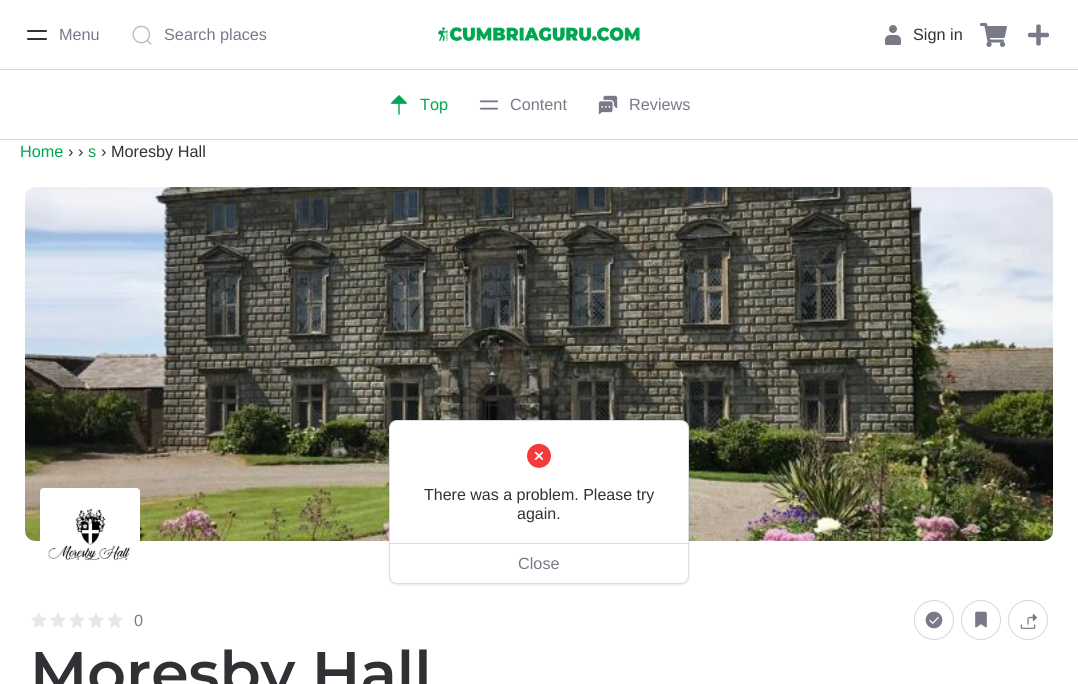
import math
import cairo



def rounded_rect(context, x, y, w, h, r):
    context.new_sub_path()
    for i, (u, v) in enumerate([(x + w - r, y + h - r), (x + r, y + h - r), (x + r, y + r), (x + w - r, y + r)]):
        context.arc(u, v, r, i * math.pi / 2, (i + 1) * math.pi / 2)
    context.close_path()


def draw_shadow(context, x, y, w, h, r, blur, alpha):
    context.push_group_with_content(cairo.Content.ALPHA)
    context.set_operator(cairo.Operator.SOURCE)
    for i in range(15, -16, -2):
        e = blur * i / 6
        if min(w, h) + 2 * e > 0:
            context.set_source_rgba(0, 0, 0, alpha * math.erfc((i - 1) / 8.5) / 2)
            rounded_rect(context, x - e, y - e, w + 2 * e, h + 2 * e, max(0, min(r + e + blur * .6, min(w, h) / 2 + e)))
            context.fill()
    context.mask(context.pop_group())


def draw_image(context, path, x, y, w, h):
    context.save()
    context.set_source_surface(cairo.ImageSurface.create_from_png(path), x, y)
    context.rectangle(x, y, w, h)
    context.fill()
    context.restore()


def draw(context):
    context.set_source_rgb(1, 1, 1)
    context.paint()
    context.set_source_rgb(212 / 255, 214 / 255, 221 / 255)
    context.rectangle(0, 69, 1078, 1)
    context.fill()
    draw_image(context, "images/1.png", 27, 30, 20, 10)
    draw_image(context, "images/2.png", 132, 25, 20, 20)
    draw_image(context, "images/3.png", 438, 27, 202, 14)
    draw_image(context, "images/4.png", 885, 25, 16, 20)
    draw_image(context, "images/5.png", 980, 23, 27, 24)
    draw_image(context, "images/6.png", 1028, 24, 21, 22)
    context.rectangle(0, 139, 1078, 1)
    context.fill()
    draw_image(context, "images/7.png", 391, 95, 16, 20)
    draw_image(context, "images/8.png", 479, 100, 20, 10)
    draw_image(context, "images/9.png", 598, 95, 20, 20)
    draw_image(context, "images/10.png", 25, 187, 1028, 354)
    draw_image(context, "images/11.png", 40, 488, 100, 73)
    draw_image(context, "images/12.png", 31, 612, 16, 16)
    draw_image(context, "images/12.png", 50, 612, 16, 16)
    draw_image(context, "images/12.png", 69, 612, 16, 16)
    draw_image(context, "images/12.png", 88, 612, 16, 16)
    draw_image(context, "images/12.png", 107, 612, 16, 16)
    context.arc(934, 620, 19.5, 0, 2 * math.pi)
    context.set_line_width(1)
    context.stroke()
    draw_image(context, "images/13.png", 925, 611, 18, 18)
    context.arc(981, 620, 19.5, 0, 2 * math.pi)
    context.stroke()
    draw_image(context, "images/14.png", 975, 611, 12, 17)
    context.arc(1028, 620, 19.5, 0, 2 * math.pi)
    context.stroke()
    draw_image(context, "images/15.png", 1020, 614, 17, 15)
    context.set_source_rgb(0, 0, 0)
    draw_shadow(context, 389, 421, 300, 164, 8, 1, 0.1)
    context.set_source_rgb(1, 1, 1)
    rounded_rect(context, 389.5, 420.5, 299, 163, 7.5)
    context.fill_preserve()
    context.set_source_rgb(218 / 255, 223 / 255, 228 / 255)
    context.stroke()
    draw_image(context, "images/16.png", 527, 443, 24, 25)
    context.rectangle(390, 543, 298, 1)
    context.fill()
    context.select_font_face("Liberation Sans")
    context.set_font_size(16.25)
    context.set_source_rgb(121 / 255, 122 / 255, 136 / 255)
    context.move_to(59, 40)
    context.show_text("Menu")
    context.move_to(164, 40)
    context.show_text("Search places")
    context.set_source_rgb(49 / 255, 49 / 255, 53 / 255)
    context.move_to(913, 40)
    context.show_text("Sign in")
    context.set_source_rgb(0, 166 / 255, 82 / 255)
    context.move_to(420, 110)
    context.show_text("Top")
    context.set_source_rgb(121 / 255, 122 / 255, 136 / 255)
    context.move_to(510, 110)
    context.show_text("Content")
    context.move_to(629, 110)
    context.show_text("Reviews")
    context.set_source_rgb(0, 166 / 255, 82 / 255)
    context.move_to(20, 157)
    context.show_text("Home")
    context.set_source_rgb(49 / 255, 49 / 255, 53 / 255)
    context.move_to(68, 157)
    context.show_text("› ›")
    context.set_source_rgb(0, 166 / 255, 82 / 255)
    context.move_to(88, 157)
    context.show_text("s")
    context.set_source_rgb(49 / 255, 49 / 255, 53 / 255)
    context.move_to(101, 157)
    context.show_text("› Moresby Hall")
    context.set_source_rgb(121 / 255, 122 / 255, 136 / 255)
    context.move_to(134, 626)
    context.show_text("0")
    context.select_font_face("Montserrat SemiBold")
    context.set_font_size(60)
    context.set_source_rgb(49 / 255, 49 / 255, 53 / 255)
    context.move_to(30, 694)
    context.show_text("Moresby Hall")
    context.select_font_face("Liberation Sans")
    context.set_font_size(16)
    context.move_to(424, 500)
    context.show_text("There was a problem. Please try")
    context.move_to(517, 519)
    context.show_text("again.")
    context.set_font_size(16.25)
    context.set_source_rgb(121 / 255, 122 / 255, 136 / 255)
    context.move_to(518, 569)
    context.show_text("Close")


surface = cairo.ImageSurface(cairo.Format.RGB24, 1078, 684)
context = cairo.Context(surface)
options = cairo.FontOptions()
options.set_hint_metrics(cairo.HintMetrics.OFF)
options.set_hint_style(cairo.HintStyle.NONE)
context.set_font_options(options)
context.set_miter_limit(4)
draw(context)
surface.write_to_png("out.png")
